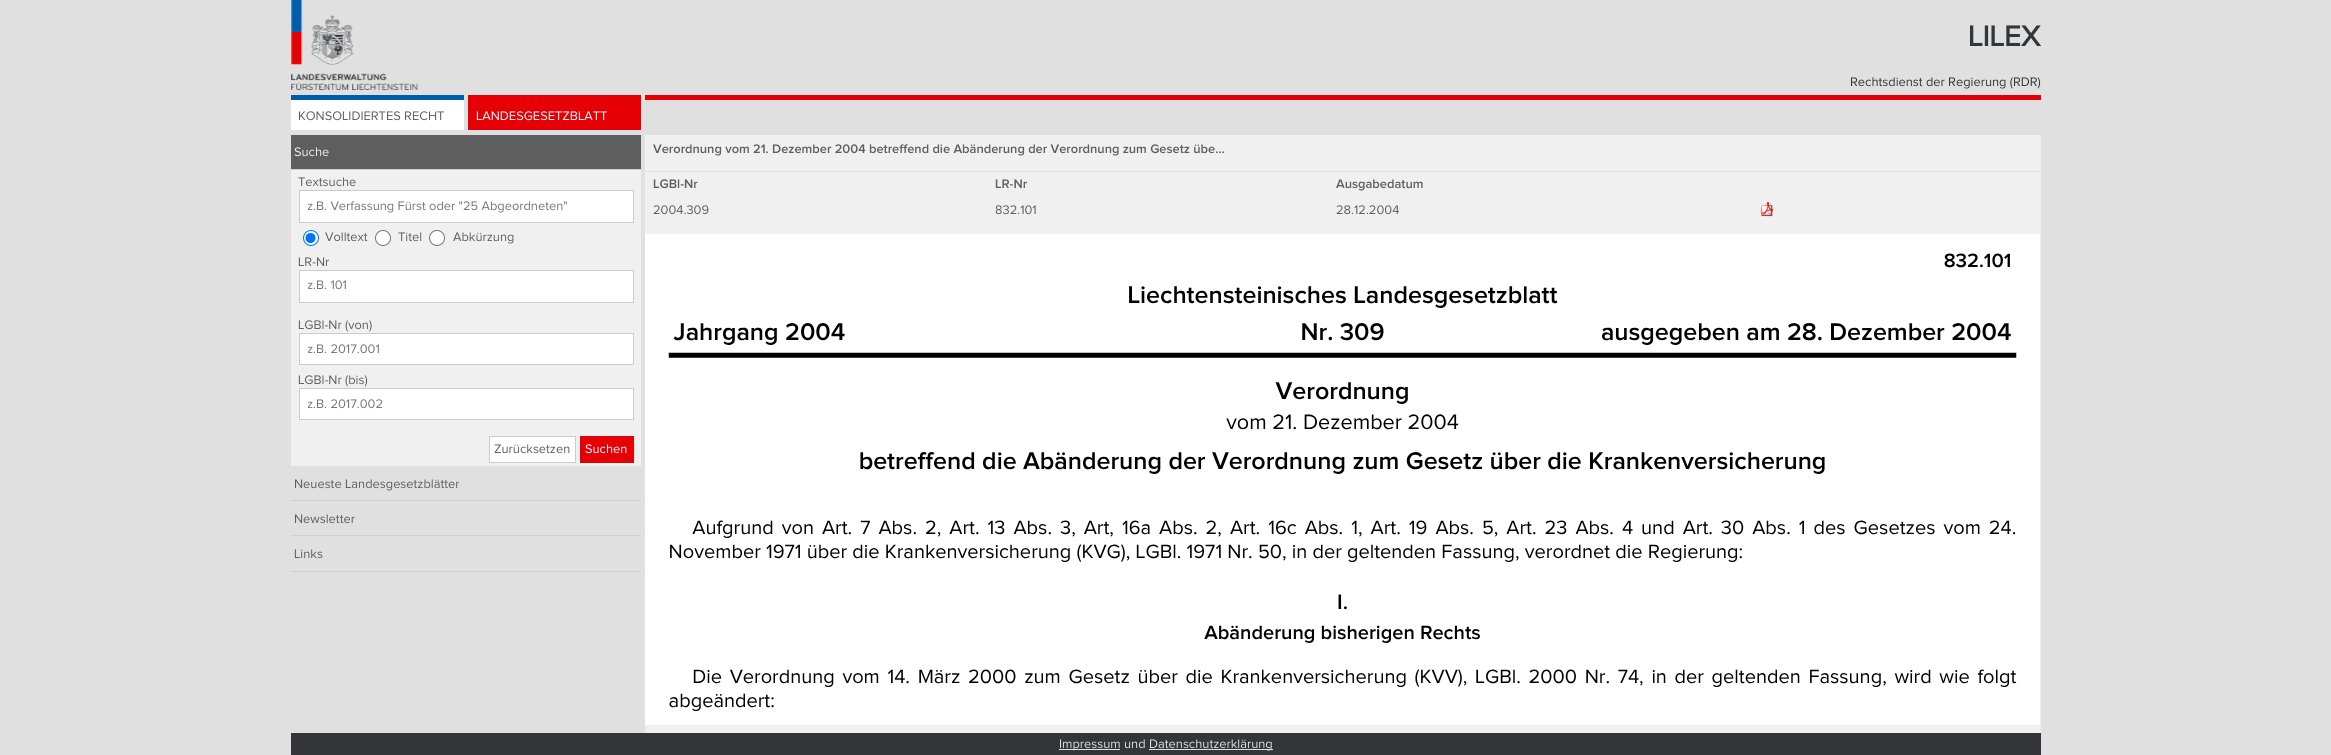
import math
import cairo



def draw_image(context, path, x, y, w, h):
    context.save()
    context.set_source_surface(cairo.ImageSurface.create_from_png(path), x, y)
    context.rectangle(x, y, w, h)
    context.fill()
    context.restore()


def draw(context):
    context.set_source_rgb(224 / 255, 224 / 255, 224 / 255)
    context.paint()
    draw_image(context, "images/1.png", 291, 0, 128, 90)
    context.set_source_rgb(230 / 255, 0, 5 / 255)
    context.rectangle(645, 95, 1396, 5)
    context.fill()
    context.set_source_rgb(1, 1, 1)
    context.rectangle(291, 100, 173, 30)
    context.fill()
    context.set_source_rgb(0, 93 / 255, 171 / 255)
    context.rectangle(291, 95, 173, 5)
    context.fill()
    context.set_source_rgb(230 / 255, 0, 5 / 255)
    context.rectangle(468, 95, 173, 35)
    context.fill()
    context.set_source_rgb(240 / 255, 240 / 255, 240 / 255)
    context.rectangle(291, 170, 350, 296)
    context.fill()
    context.set_source_rgb(94 / 255, 94 / 255, 95 / 255)
    context.rectangle(291, 135, 350, 34)
    context.fill()
    context.set_source_rgb(209 / 255, 209 / 255, 209 / 255)
    context.rectangle(291, 169, 350, 1)
    context.fill()
    context.set_source_rgb(1, 1, 1)
    context.rectangle(299.5, 190.5, 334, 32)
    context.fill_preserve()
    context.set_source_rgb(204 / 255, 204 / 255, 204 / 255)
    context.set_line_width(1)
    context.stroke()
    context.set_source_rgb(1, 1, 1)
    context.arc(311, 238, 7.5, 0, 2 * math.pi)
    context.fill_preserve()
    context.set_source_rgb(0, 117 / 255, 1)
    context.stroke()
    context.arc(310.5, 238, 5, 0, 2 * math.pi)
    context.fill()
    context.set_source_rgb(1, 1, 1)
    context.arc(383, 238, 7.5, 0, 2 * math.pi)
    context.fill_preserve()
    context.set_source_rgb(118 / 255, 118 / 255, 118 / 255)
    context.stroke()
    context.set_source_rgb(1, 1, 1)
    context.arc(437, 238, 7.5, 0, 2 * math.pi)
    context.fill_preserve()
    context.set_source_rgb(118 / 255, 118 / 255, 118 / 255)
    context.stroke()
    context.set_source_rgb(1, 1, 1)
    context.rectangle(299.5, 270.5, 334, 32)
    context.fill_preserve()
    context.set_source_rgb(204 / 255, 204 / 255, 204 / 255)
    context.stroke()
    context.set_source_rgb(1, 1, 1)
    context.rectangle(299.5, 333.5, 334, 31)
    context.fill_preserve()
    context.set_source_rgb(204 / 255, 204 / 255, 204 / 255)
    context.stroke()
    context.set_source_rgb(1, 1, 1)
    context.rectangle(299.5, 388.5, 334, 31)
    context.fill_preserve()
    context.set_source_rgb(204 / 255, 204 / 255, 204 / 255)
    context.stroke()
    context.set_source_rgb(1, 1, 1)
    context.rectangle(489.5, 436.5, 86, 26)
    context.fill_preserve()
    context.set_source_rgb(204 / 255, 204 / 255, 204 / 255)
    context.stroke()
    context.set_source_rgb(230 / 255, 0, 5 / 255)
    context.rectangle(580, 436, 54, 27)
    context.fill()
    context.set_source_rgb(209 / 255, 209 / 255, 209 / 255)
    context.rectangle(291, 500, 350, 1)
    context.fill()
    context.rectangle(291, 535, 350, 1)
    context.fill()
    context.rectangle(291, 571, 350, 1)
    context.fill()
    context.set_source_rgb(240 / 255, 240 / 255, 240 / 255)
    context.rectangle(645, 135, 1396, 598)
    context.fill()
    context.set_source_rgb(224 / 255, 224 / 255, 224 / 255)
    context.rectangle(645, 171, 1396, 1)
    context.fill()
    draw_image(context, "images/2.png", 1761, 202, 13, 15)
    draw_image(context, "images/3.png", 645, 234, 1395, 491)
    context.set_source_rgb(51 / 255, 53 / 255, 56 / 255)
    context.rectangle(291, 733, 1750, 22)
    context.fill()
    context.set_source_rgb(224 / 255, 224 / 255, 224 / 255)
    context.rectangle(1059, 749, 61, 1)
    context.fill()
    context.rectangle(1149, 749, 124, 1)
    context.fill()
    context.select_font_face("Proxima Nova", cairo.FontSlant.NORMAL, cairo.FontWeight.BOLD)
    context.set_font_size(29.5)
    context.set_source_rgb(51 / 255, 53 / 255, 56 / 255)
    context.move_to(1968, 46)
    context.show_text("LILEX")
    context.select_font_face("Proxima Nova")
    context.set_font_size(12.85)
    context.move_to(1850, 86)
    context.show_text("Rechtsdienst der Regierung (RDR)")
    context.set_source_rgb(94 / 255, 94 / 255, 95 / 255)
    context.move_to(298, 120)
    context.show_text("KONSOLIDIERTES RECHT")
    context.set_source_rgb(1, 1, 1)
    context.move_to(476, 120)
    context.show_text("LANDESGESETZBLATT")
    context.set_source_rgb(240 / 255, 240 / 255, 240 / 255)
    context.move_to(294, 156)
    context.show_text("Suche")
    context.set_source_rgb(94 / 255, 94 / 255, 95 / 255)
    context.move_to(298, 186)
    context.show_text("Textsuche")
    context.save()
    context.rectangle(308, 199, 317, 15)
    context.clip()
    context.set_source_rgb(117 / 255, 117 / 255, 117 / 255)
    context.move_to(307, 210)
    context.show_text("z.B. Verfassung Fürst oder \"25 Abgeordneten\"")
    context.restore()
    context.move_to(325, 241)
    context.show_text("Volltext")
    context.move_to(398, 241)
    context.show_text("Titel")
    context.move_to(453, 241)
    context.show_text("Abkürzung")
    context.move_to(298, 266)
    context.show_text("LR-Nr")
    context.save()
    context.rectangle(308, 279, 317, 15)
    context.clip()
    context.set_source_rgb(117 / 255, 117 / 255, 117 / 255)
    context.move_to(307, 289)
    context.show_text("z.B. 101")
    context.restore()
    context.move_to(298, 329)
    context.show_text("LGBl-Nr (von)")
    context.save()
    context.rectangle(308, 341, 317, 15)
    context.clip()
    context.set_source_rgb(117 / 255, 117 / 255, 117 / 255)
    context.move_to(307, 353)
    context.show_text("z.B. 2017.001")
    context.restore()
    context.move_to(298, 384)
    context.show_text("LGBl-Nr (bis)")
    context.save()
    context.rectangle(308, 396, 317, 15)
    context.clip()
    context.set_source_rgb(117 / 255, 117 / 255, 117 / 255)
    context.move_to(307, 408)
    context.show_text("z.B. 2017.002")
    context.restore()
    context.move_to(494, 453)
    context.show_text("Zurücksetzen")
    context.set_source_rgb(1, 1, 1)
    context.move_to(585, 453)
    context.show_text("Suchen")
    context.set_source_rgb(94 / 255, 94 / 255, 95 / 255)
    context.move_to(294, 488)
    context.show_text("Neueste Landesgesetzblätter")
    context.move_to(294, 523)
    context.show_text("Newsletter")
    context.move_to(294, 558)
    context.show_text("Links")
    context.select_font_face("Proxima Nova SemiBold")
    context.move_to(653, 153)
    context.show_text("Verordnung vom 21. Dezember 2004 betreffend die Abänderung der Verordnung zum Gesetz übe...")
    context.move_to(653, 188)
    context.show_text("LGBl-Nr")
    context.move_to(995, 188)
    context.show_text("LR-Nr")
    context.move_to(1336, 188)
    context.show_text("Ausgabedatum")
    context.select_font_face("Proxima Nova")
    context.move_to(653, 214)
    context.show_text("2004.309")
    context.move_to(995, 214)
    context.show_text("832.101")
    context.move_to(1336, 214)
    context.show_text("28.12.2004")
    context.set_source_rgb(224 / 255, 224 / 255, 224 / 255)
    context.move_to(1059, 748)
    context.show_text("Impressum und")
    context.move_to(1149, 748)
    context.show_text("Datenschutzerklärung")


surface = cairo.ImageSurface(cairo.Format.RGB24, 2331, 755)
context = cairo.Context(surface)
options = cairo.FontOptions()
options.set_hint_metrics(cairo.HintMetrics.OFF)
options.set_hint_style(cairo.HintStyle.NONE)
context.set_font_options(options)
context.set_miter_limit(4)
draw(context)
surface.write_to_png("out.png")
